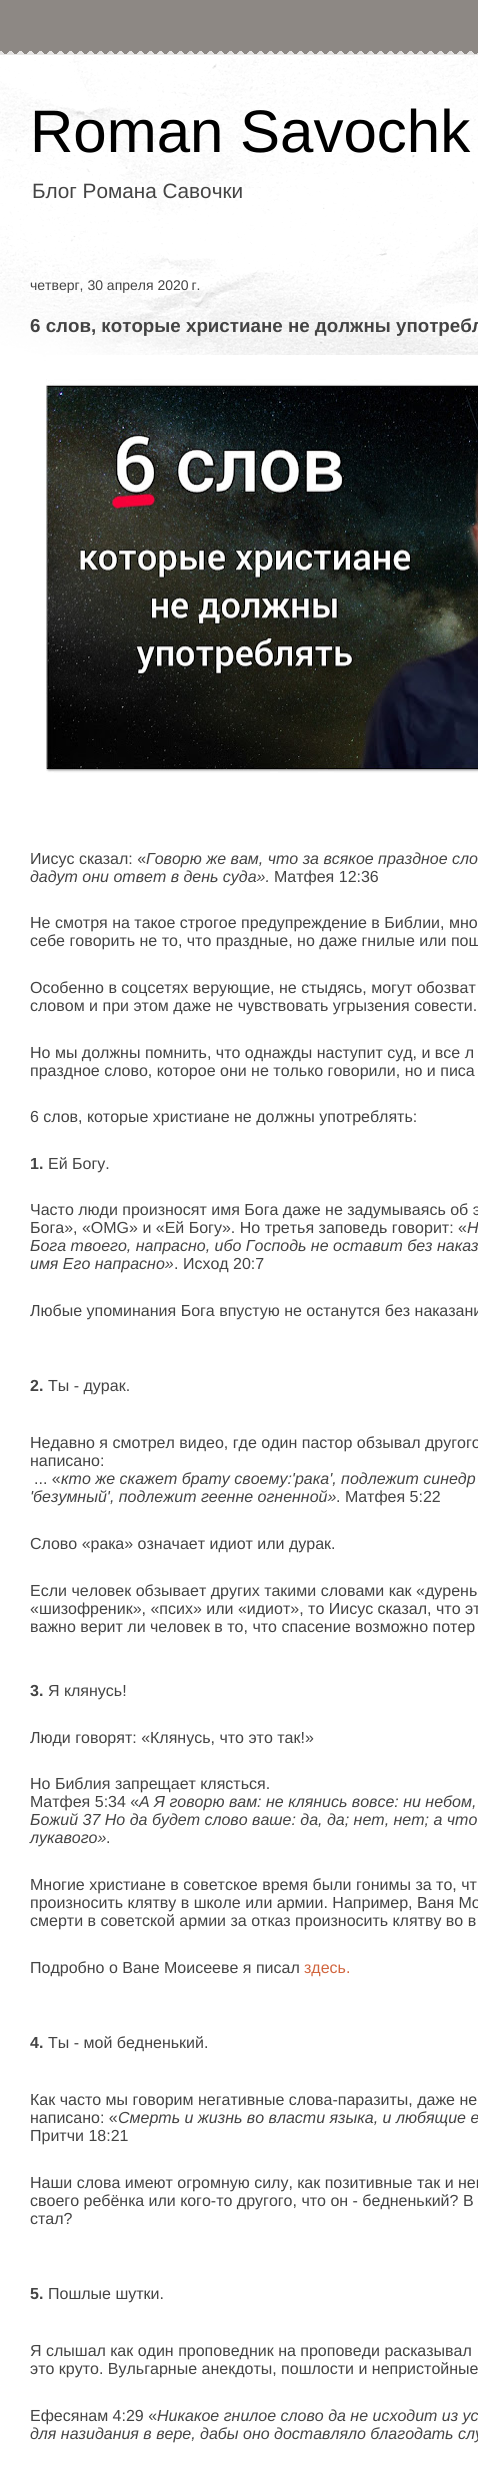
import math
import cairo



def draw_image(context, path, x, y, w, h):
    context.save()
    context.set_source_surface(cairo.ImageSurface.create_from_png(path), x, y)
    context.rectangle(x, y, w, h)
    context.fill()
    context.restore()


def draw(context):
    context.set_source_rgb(141 / 255, 136 / 255, 132 / 255)
    context.paint()
    draw_image(context, "images/1.png", 0, 51, 478, 4)
    context.set_source_rgb(1, 1, 1)
    context.rectangle(0, 55, 478, 2426)
    context.fill()
    draw_image(context, "images/2.png", 0, 55, 478, 307)
    draw_image(context, "images/3.png", 46, 355, 432, 418)
    context.select_font_face("Liberation Sans")
    context.set_font_size(60)
    context.set_source_rgb(0, 0, 0)
    context.move_to(30, 152)
    context.show_text("Roman Savochk")
    context.set_font_size(20.75)
    context.set_source_rgb(68 / 255, 68 / 255, 68 / 255)
    context.move_to(32, 198)
    context.show_text("Блог Романа Савочки")
    context.set_font_size(14)
    context.move_to(30, 290)
    context.show_text("четверг, 30 апреля 2020 г.")
    context.select_font_face("Liberation Sans", cairo.FontSlant.NORMAL, cairo.FontWeight.BOLD)
    context.set_font_size(18.75)
    context.move_to(30, 332)
    context.show_text("6 слов, которые христиане не должны употребл")
    context.select_font_face("Liberation Sans")
    context.set_font_size(16)
    context.move_to(30, 864)
    context.show_text("Иисус сказал: «")
    context.select_font_face("Liberation Sans", cairo.FontSlant.ITALIC)
    context.move_to(146, 864)
    context.show_text("Говорю же вам, что за всякое праздное сло")
    context.move_to(30, 882)
    context.show_text("дадут они ответ в день суда».")
    context.select_font_face("Liberation Sans")
    context.move_to(274, 882)
    context.show_text("Матфея 12:36")
    context.move_to(30, 928)
    context.show_text("Не смотря на такое строгое предупреждение в Библии, мно")
    context.move_to(30, 946)
    context.show_text("себе говорить не то, что праздные, но даже гнилые или пош")
    context.move_to(30, 993)
    context.show_text("Особенно в соцсетях верующие, не стыдясь, могут обозват")
    context.move_to(30, 1011)
    context.show_text("словом и при этом даже не чувствовать угрызения совести.")
    context.move_to(30, 1058)
    context.show_text("Но мы должны помнить, что однажды наступит суд, и все л")
    context.move_to(30, 1076)
    context.show_text("праздное слово, которое они не только говорили, но и писа")
    context.move_to(30, 1122)
    context.show_text("6 слов, которые христиане не должны употреблять:")
    context.select_font_face("Liberation Sans", cairo.FontSlant.NORMAL, cairo.FontWeight.BOLD)
    context.move_to(30, 1169)
    context.show_text("1.")
    context.select_font_face("Liberation Sans")
    context.move_to(48, 1169)
    context.show_text("Ей Богу.")
    context.move_to(30, 1215)
    context.show_text("Часто люди произносят имя Бога даже не задумываясь об э")
    context.move_to(30, 1233)
    context.show_text("Бога», «OMG» и «Ей Богу». Но третья заповедь говорит: «")
    context.select_font_face("Liberation Sans", cairo.FontSlant.ITALIC)
    context.move_to(467, 1233)
    context.show_text("Н")
    context.move_to(30, 1251)
    context.show_text("Бога твоего, напрасно, ибо Господь не оставит без наказ")
    context.move_to(30, 1269)
    context.show_text("имя Его напрасно»")
    context.select_font_face("Liberation Sans")
    context.move_to(174, 1269)
    context.show_text(". Исход 20:7")
    context.move_to(30, 1316)
    context.show_text("Любые упоминания Бога впустую не останутся без наказани")
    context.select_font_face("Liberation Sans", cairo.FontSlant.NORMAL, cairo.FontWeight.BOLD)
    context.move_to(30, 1391)
    context.show_text("2.")
    context.select_font_face("Liberation Sans")
    context.move_to(48, 1391)
    context.show_text("Ты - дурак.")
    context.move_to(30, 1448)
    context.show_text("Недавно я смотрел видео, где один пастор обзывал другого")
    context.move_to(30, 1466)
    context.show_text("написано:")
    context.move_to(34, 1484)
    context.show_text("... «")
    context.select_font_face("Liberation Sans", cairo.FontSlant.ITALIC)
    context.move_to(61, 1484)
    context.show_text("кто же скажет брату своему:'рака', подлежит синедр")
    context.move_to(30, 1502)
    context.show_text("'безумный', подлежит геенне огненной»")
    context.select_font_face("Liberation Sans")
    context.move_to(336, 1502)
    context.show_text(". Матфея 5:22")
    context.move_to(30, 1549)
    context.show_text("Слово «рака» означает идиот или дурак.")
    context.move_to(30, 1596)
    context.show_text("Если человек обзывает других такими словами как «дурень")
    context.move_to(30, 1614)
    context.show_text("«шизофреник», «псих» или «идиот», то Иисус сказал, что эт")
    context.move_to(30, 1632)
    context.show_text("важно верит ли человек в то, что спасение возможно потер")
    context.select_font_face("Liberation Sans", cairo.FontSlant.NORMAL, cairo.FontWeight.BOLD)
    context.move_to(30, 1696)
    context.show_text("3.")
    context.select_font_face("Liberation Sans")
    context.move_to(48, 1696)
    context.show_text("Я клянусь!")
    context.move_to(30, 1743)
    context.show_text("Люди говорят: «Клянусь, что это так!»")
    context.move_to(30, 1789)
    context.show_text("Но Библия запрещает клясться.")
    context.move_to(30, 1807)
    context.show_text("Матфея 5:34 «")
    context.select_font_face("Liberation Sans", cairo.FontSlant.ITALIC)
    context.move_to(139, 1807)
    context.show_text("А Я говорю вам: не клянись вовсе: ни небом,")
    context.move_to(30, 1825)
    context.show_text("Божий 37 Но да будет слово ваше: да, да; нет, нет; а что")
    context.move_to(30, 1843)
    context.show_text("лукавого»")
    context.select_font_face("Liberation Sans")
    context.move_to(106, 1843)
    context.show_text(".")
    context.move_to(30, 1890)
    context.show_text("Многие христиане в советское время были гонимы за то, чт")
    context.move_to(30, 1908)
    context.show_text("произносить клятву в школе или армии. Например, Ваня Мо")
    context.move_to(30, 1926)
    context.show_text("смерти в советской армии за отказ произносить клятву во в")
    context.move_to(30, 1973)
    context.show_text("Подробно о Ване Моисееве я писал")
    context.set_source_rgb(209 / 255, 102 / 255, 63 / 255)
    context.move_to(304, 1973)
    context.show_text("здесь.")
    context.select_font_face("Liberation Sans", cairo.FontSlant.NORMAL, cairo.FontWeight.BOLD)
    context.set_source_rgb(68 / 255, 68 / 255, 68 / 255)
    context.move_to(30, 2048)
    context.show_text("4.")
    context.select_font_face("Liberation Sans")
    context.move_to(48, 2048)
    context.show_text("Ты - мой бедненький.")
    context.move_to(30, 2105)
    context.show_text("Как часто мы говорим негативные слова-паразиты, даже не")
    context.move_to(30, 2123)
    context.show_text("написано: «")
    context.select_font_face("Liberation Sans", cairo.FontSlant.ITALIC)
    context.move_to(118, 2123)
    context.show_text("Смерть и жизнь во власти языка, и любящие е")
    context.select_font_face("Liberation Sans")
    context.move_to(30, 2141)
    context.show_text("Притчи 18:21")
    context.move_to(30, 2188)
    context.show_text("Наши слова имеют огромную силу, как позитивные так и нег")
    context.move_to(30, 2206)
    context.show_text("своего ребёнка или кого-то другого, что он - бедненький? В")
    context.move_to(30, 2224)
    context.show_text("стал?")
    context.select_font_face("Liberation Sans", cairo.FontSlant.NORMAL, cairo.FontWeight.BOLD)
    context.move_to(30, 2299)
    context.show_text("5.")
    context.select_font_face("Liberation Sans")
    context.move_to(48, 2299)
    context.show_text("Пошлые шутки.")
    context.move_to(30, 2356)
    context.show_text("Я слышал как один проповедник на проповеди расказывал")
    context.move_to(30, 2374)
    context.show_text("это круто. Вульгарные анекдоты, пошлости и непристойные")
    context.move_to(30, 2421)
    context.show_text("Ефесянам 4:29 «")
    context.select_font_face("Liberation Sans", cairo.FontSlant.ITALIC)
    context.move_to(157, 2421)
    context.show_text("Никакое гнилое слово да не исходит из ус")
    context.move_to(30, 2439)
    context.show_text("для назидания в вере, дабы оно доставляло благодать слу")


surface = cairo.ImageSurface(cairo.Format.RGB24, 478, 2481)
context = cairo.Context(surface)
options = cairo.FontOptions()
options.set_hint_metrics(cairo.HintMetrics.OFF)
options.set_hint_style(cairo.HintStyle.NONE)
context.set_font_options(options)
context.set_miter_limit(4)
draw(context)
surface.write_to_png("out.png")
